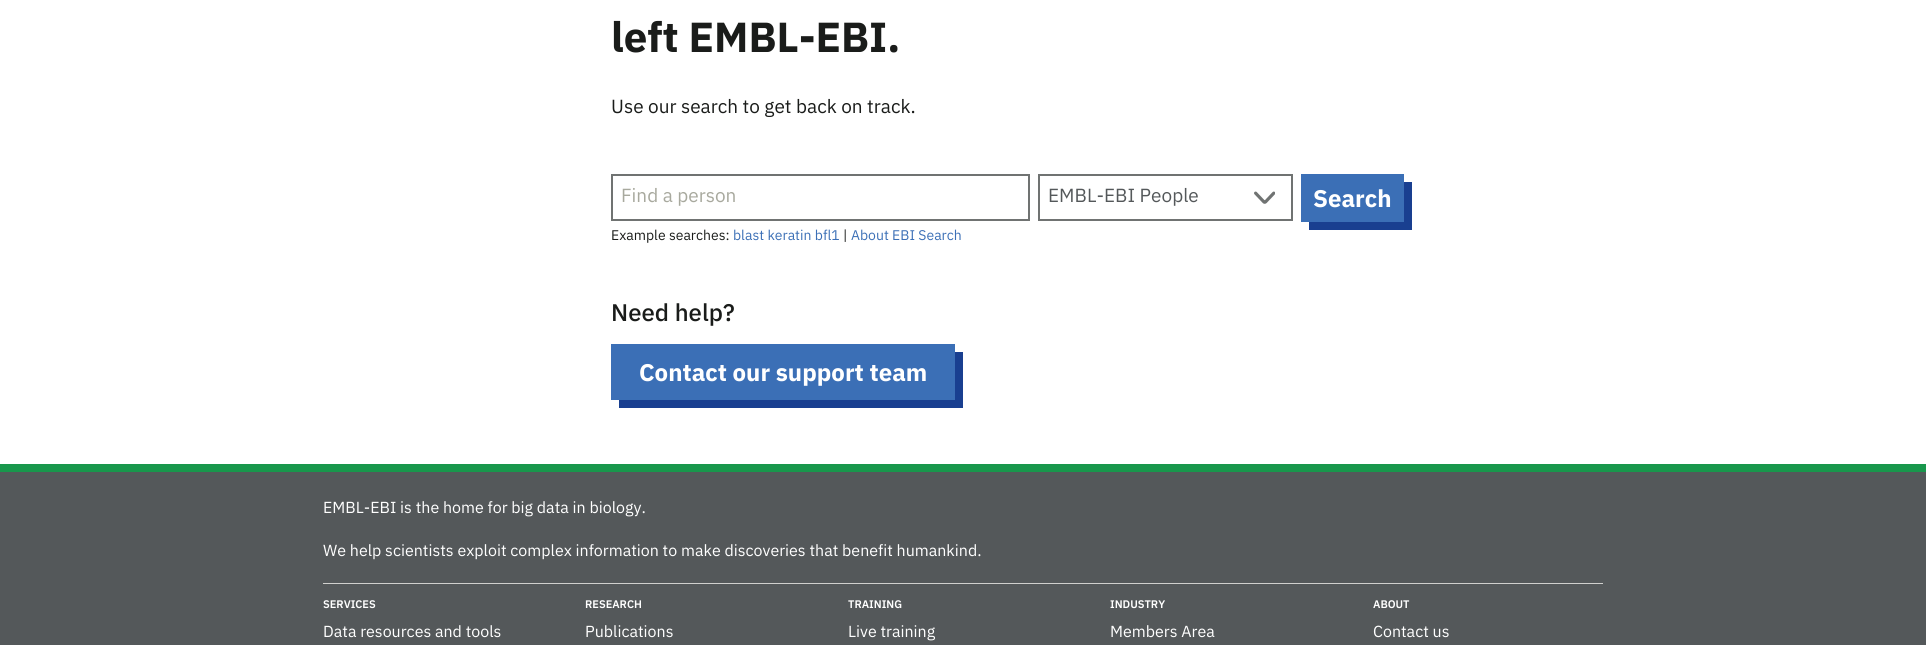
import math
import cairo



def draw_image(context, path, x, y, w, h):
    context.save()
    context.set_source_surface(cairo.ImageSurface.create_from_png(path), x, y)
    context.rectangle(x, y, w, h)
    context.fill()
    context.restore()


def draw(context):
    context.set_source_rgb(1, 1, 1)
    context.paint()
    context.rectangle(612, 175, 417, 45)
    context.set_source_rgb(112 / 255, 115 / 255, 114 / 255)
    context.stroke()
    draw_image(context, "images/1.png", 1254, 191, 21, 13)
    context.rectangle(1039, 175, 253, 45)
    context.stroke()
    context.set_source_rgb(25 / 255, 63 / 255, 144 / 255)
    context.new_path()
    context.move_to(1309, 222)
    context.line_to(1309, 230)
    context.line_to(1412, 230)
    context.line_to(1412, 182)
    context.line_to(1404, 182)
    context.line_to(1404, 222)
    context.close_path()
    context.fill()
    context.set_source_rgb(59 / 255, 111 / 255, 182 / 255)
    context.rectangle(1301, 174, 103, 48)
    context.fill()
    context.set_source_rgb(25 / 255, 63 / 255, 144 / 255)
    context.new_path()
    context.move_to(619, 400)
    context.line_to(619, 408)
    context.line_to(963, 408)
    context.line_to(963, 352)
    context.line_to(955, 352)
    context.line_to(955, 400)
    context.close_path()
    context.fill()
    context.set_source_rgb(59 / 255, 111 / 255, 182 / 255)
    context.rectangle(611, 344, 344, 56)
    context.fill()
    context.set_source_rgb(24 / 255, 151 / 255, 76 / 255)
    context.rectangle(0, 464, 1926, 8)
    context.fill()
    context.set_source_rgb(84 / 255, 88 / 255, 90 / 255)
    context.rectangle(0, 472, 1926, 173)
    context.fill()
    context.set_source_rgb(208 / 255, 208 / 255, 206 / 255)
    context.rectangle(323, 583, 1280, 1)
    context.fill()
    context.select_font_face("IBM Plex Sans", cairo.FontSlant.NORMAL, cairo.FontWeight.BOLD)
    context.set_font_size(42)
    context.set_source_rgb(26 / 255, 28 / 255, 26 / 255)
    context.move_to(611, 52)
    context.show_text("left EMBL-EBI.")
    context.select_font_face("IBM Plex Sans")
    context.set_font_size(19)
    context.move_to(611, 113)
    context.show_text("Use our search to get back on track.")
    context.set_source_rgb(168 / 255, 169 / 255, 158 / 255)
    context.move_to(621, 202)
    context.show_text("Find a person")
    context.set_source_rgb(84 / 255, 88 / 255, 90 / 255)
    context.move_to(1048, 202)
    context.show_text("EMBL-EBI People")
    context.select_font_face("IBM Plex Sans", cairo.FontSlant.NORMAL, cairo.FontWeight.BOLD)
    context.set_font_size(24)
    context.set_source_rgb(1, 1, 1)
    context.move_to(1313, 207)
    context.show_text("Search")
    context.select_font_face("IBM Plex Sans")
    context.set_font_size(14)
    context.set_source_rgb(26 / 255, 28 / 255, 26 / 255)
    context.move_to(611, 240)
    context.show_text("Example searches:")
    context.set_source_rgb(59 / 255, 111 / 255, 182 / 255)
    context.move_to(733, 240)
    context.show_text("blast keratin bfl1")
    context.set_source_rgb(26 / 255, 28 / 255, 26 / 255)
    context.move_to(843, 240)
    context.show_text("|")
    context.set_source_rgb(59 / 255, 111 / 255, 182 / 255)
    context.move_to(851, 240)
    context.show_text("About EBI Search")
    context.select_font_face("IBM Plex Sans Medium")
    context.set_font_size(24)
    context.set_source_rgb(26 / 255, 28 / 255, 26 / 255)
    context.move_to(611, 321)
    context.show_text("Need help?")
    context.select_font_face("IBM Plex Sans", cairo.FontSlant.NORMAL, cairo.FontWeight.BOLD)
    context.set_source_rgb(1, 1, 1)
    context.move_to(639, 381)
    context.show_text("Contact our support team")
    context.select_font_face("IBM Plex Sans")
    context.set_font_size(16)
    context.move_to(323, 513)
    context.show_text("EMBL-EBI is the home for big data in biology.")
    context.move_to(323, 556)
    context.show_text("We help scientists exploit complex information to make discoveries that benefit humankind.")
    context.select_font_face("IBM Plex Sans SemiBold")
    context.set_font_size(11)
    context.move_to(323, 608)
    context.show_text("SERVICES")
    context.select_font_face("IBM Plex Sans")
    context.set_font_size(16)
    context.move_to(323, 637)
    context.show_text("Data resources and tools")
    context.select_font_face("IBM Plex Sans SemiBold")
    context.set_font_size(11)
    context.move_to(585, 608)
    context.show_text("RESEARCH")
    context.select_font_face("IBM Plex Sans")
    context.set_font_size(16)
    context.move_to(585, 637)
    context.show_text("Publications")
    context.select_font_face("IBM Plex Sans SemiBold")
    context.set_font_size(11)
    context.move_to(848, 608)
    context.show_text("TRAINING")
    context.select_font_face("IBM Plex Sans")
    context.set_font_size(16)
    context.move_to(848, 637)
    context.show_text("Live training")
    context.select_font_face("IBM Plex Sans SemiBold")
    context.set_font_size(11)
    context.move_to(1110, 608)
    context.show_text("INDUSTRY")
    context.select_font_face("IBM Plex Sans")
    context.set_font_size(16)
    context.move_to(1110, 637)
    context.show_text("Members Area")
    context.select_font_face("IBM Plex Sans SemiBold")
    context.set_font_size(11)
    context.move_to(1373, 608)
    context.show_text("ABOUT")
    context.select_font_face("IBM Plex Sans")
    context.set_font_size(16)
    context.move_to(1373, 637)
    context.show_text("Contact us")


surface = cairo.ImageSurface(cairo.Format.RGB24, 1926, 645)
context = cairo.Context(surface)
options = cairo.FontOptions()
options.set_hint_metrics(cairo.HintMetrics.OFF)
options.set_hint_style(cairo.HintStyle.NONE)
context.set_font_options(options)
context.set_miter_limit(4)
draw(context)
surface.write_to_png("out.png")
